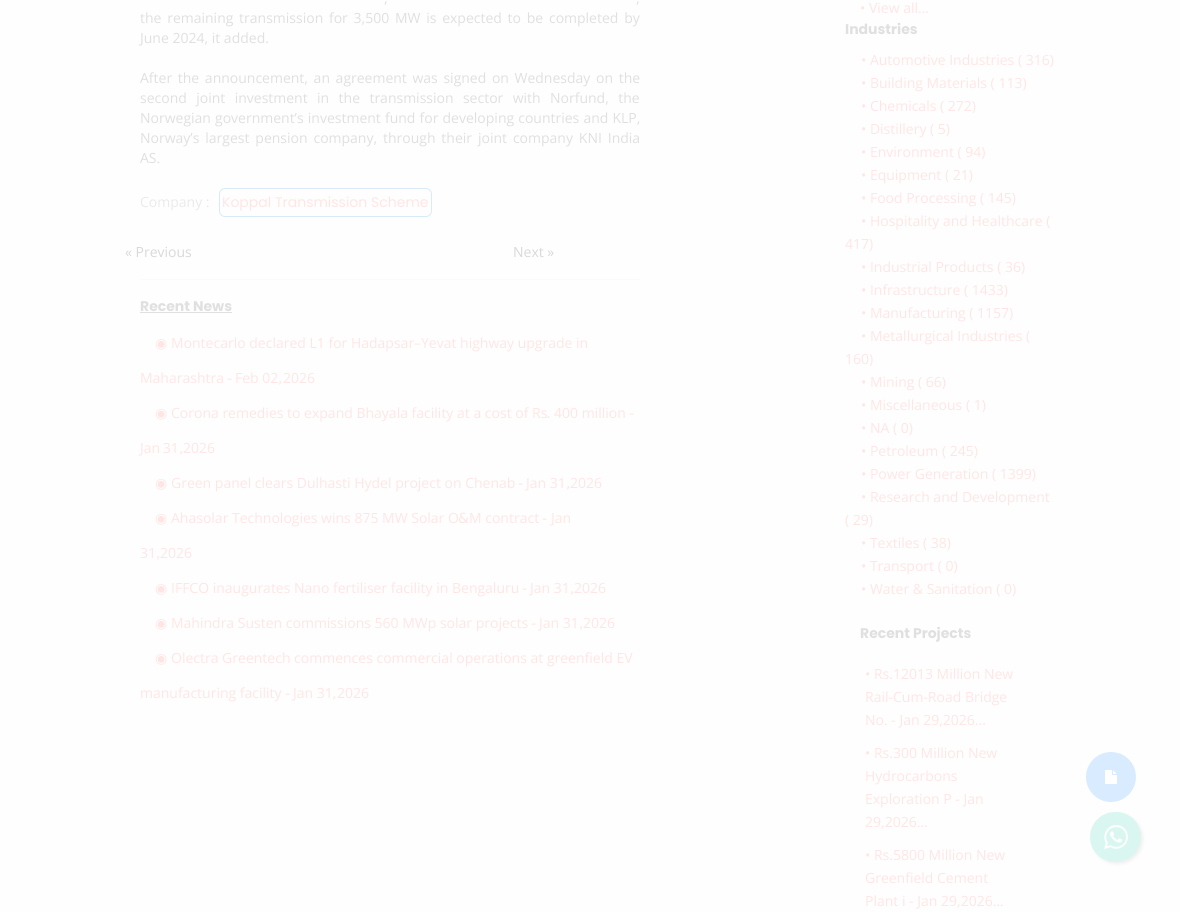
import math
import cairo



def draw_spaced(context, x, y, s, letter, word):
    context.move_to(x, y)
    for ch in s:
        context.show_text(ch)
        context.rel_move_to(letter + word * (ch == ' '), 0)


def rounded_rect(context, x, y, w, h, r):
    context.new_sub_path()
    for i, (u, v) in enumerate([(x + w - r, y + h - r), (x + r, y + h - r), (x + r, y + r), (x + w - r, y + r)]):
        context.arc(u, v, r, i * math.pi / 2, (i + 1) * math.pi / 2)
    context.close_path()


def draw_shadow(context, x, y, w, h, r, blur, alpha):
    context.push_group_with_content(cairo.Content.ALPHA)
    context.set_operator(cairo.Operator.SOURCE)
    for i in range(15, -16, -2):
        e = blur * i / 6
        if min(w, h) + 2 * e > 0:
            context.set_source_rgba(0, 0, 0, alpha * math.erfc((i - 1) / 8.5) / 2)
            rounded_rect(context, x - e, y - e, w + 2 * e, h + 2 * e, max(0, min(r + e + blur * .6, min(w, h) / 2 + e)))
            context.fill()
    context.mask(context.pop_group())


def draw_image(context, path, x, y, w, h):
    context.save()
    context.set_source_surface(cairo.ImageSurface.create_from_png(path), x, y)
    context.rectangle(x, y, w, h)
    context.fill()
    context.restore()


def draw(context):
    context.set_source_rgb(254 / 255, 254 / 255, 254 / 255)
    context.paint()
    rounded_rect(context, 219.5, 188.5, 212, 28, 5.5)
    context.set_source_rgb(217 / 255, 235 / 255, 247 / 255)
    context.set_line_width(1)
    context.stroke()
    context.set_source_rgb(250 / 255, 250 / 255, 250 / 255)
    context.rectangle(140, 279, 500, 1)
    context.fill()
    context.set_source_rgb(224 / 255, 224 / 255, 224 / 255)
    context.rectangle(140, 312, 92, 1)
    context.fill()
    context.set_source_rgb(240 / 255, 240 / 255, 240 / 255)
    draw_shadow(context, 1092, 814, 51, 50, 25, 1.5, 1)
    context.set_source_rgb(217 / 255, 247 / 255, 240 / 255)
    rounded_rect(context, 1090, 812, 51, 50, 25)
    context.fill()
    draw_image(context, "images/1.png", 1104, 825, 24, 24)
    context.set_source_rgb(217 / 255, 235 / 255, 1)
    context.arc(1111, 777, 25, 0, 2 * math.pi)
    context.fill()
    draw_image(context, "images/2.png", 1105, 770, 12, 14)
    context.select_font_face("Open Sans")
    context.set_font_size(14)
    context.set_source_rgb(224 / 255, 224 / 255, 224 / 255)
    context.move_to(384, 3)
    context.show_text(",")
    context.move_to(636, 3)
    context.show_text(",")
    draw_spaced(context, 140, 23, "the remaining transmission for 3,500 MW is expected to be completed by", 0, 2.1)
    context.move_to(140, 43)
    context.show_text("June 2024, it added.")
    draw_spaced(context, 140, 83, "After the announcement, an agreement was signed on Wednesday on the", 0, 2)
    draw_spaced(context, 140, 103, "second joint investment in the transmission sector with Norfund, the", 0, 5.75)
    draw_spaced(context, 140, 123, "Norwegian government’s investment fund for developing countries and KLP,", 0, 0.5)
    draw_spaced(context, 140, 143, "Norway’s largest pension company, through their joint company KNI India", 0, 2.25)
    context.move_to(140, 163)
    context.show_text("AS.")
    context.set_source_rgb(234 / 255, 234 / 255, 234 / 255)
    context.move_to(140, 207)
    context.show_text("Company :")
    context.select_font_face("Poppins")
    context.set_source_rgb(1, 230 / 255, 229 / 255)
    context.move_to(222, 207)
    context.show_text("Koppal Transmission Scheme")
    context.select_font_face("Open Sans")
    context.set_source_rgb(217 / 255, 217 / 255, 217 / 255)
    context.move_to(125, 257)
    context.show_text("« Previous")
    context.move_to(513, 257)
    context.show_text("Next »")
    context.select_font_face("Poppins", cairo.FontSlant.NORMAL, cairo.FontWeight.BOLD)
    context.set_source_rgb(224 / 255, 224 / 255, 224 / 255)
    context.move_to(140, 311)
    context.show_text("Recent News")
    context.select_font_face("DejaVu Sans")
    context.set_source_rgb(1, 230 / 255, 229 / 255)
    context.move_to(155, 348)
    context.show_text("◉")
    context.select_font_face("Open Sans")
    context.move_to(171, 348)
    context.show_text("Montecarlo declared L1 for Hadapsar")
    context.select_font_face("DejaVu Sans")
    context.move_to(414, 348)
    context.show_text("–")
    context.select_font_face("Open Sans")
    context.move_to(421, 348)
    context.show_text("Yevat highway upgrade in")
    context.move_to(140, 383)
    context.show_text("Maharashtra")
    context.select_font_face("DejaVu Sans")
    context.move_to(227, 383)
    context.show_text("-")
    context.select_font_face("Open Sans")
    context.move_to(235, 383)
    context.show_text("Feb 02")
    context.move_to(283, 383)
    context.show_text("2026")
    context.select_font_face("DejaVu Sans")
    context.move_to(278, 383)
    context.show_text(",")
    context.move_to(155, 418)
    context.show_text("◉")
    context.select_font_face("Open Sans")
    context.move_to(171, 418)
    context.show_text("Corona remedies to expand Bhayala facility at a cost of Rs")
    context.move_to(554, 418)
    context.show_text("400 million")
    context.select_font_face("DejaVu Sans")
    context.move_to(629, 418)
    context.show_text("-")
    context.move_to(546, 418)
    context.show_text(".")
    context.select_font_face("Open Sans")
    draw_spaced(context, 140, 453, "Jan 31", 0, -1)
    context.select_font_face("DejaVu Sans")
    context.move_to(179, 453)
    context.show_text(",")
    context.select_font_face("Open Sans")
    context.move_to(183, 453)
    context.show_text("2026")
    context.select_font_face("DejaVu Sans")
    context.move_to(155, 488)
    context.show_text("◉")
    context.select_font_face("Open Sans")
    context.move_to(171, 488)
    context.show_text("Green panel clears Dulhasti Hydel project on Chenab")
    context.select_font_face("DejaVu Sans")
    context.move_to(518, 488)
    context.show_text("-")
    context.select_font_face("Open Sans")
    context.move_to(526, 488)
    context.show_text("Jan 31")
    context.move_to(570, 488)
    context.show_text("2026")
    context.select_font_face("DejaVu Sans")
    context.move_to(566, 488)
    context.show_text(",")
    context.move_to(155, 523)
    context.show_text("◉")
    context.select_font_face("Open Sans")
    context.move_to(171, 523)
    context.show_text("Ahasolar Technologies wins 875 MW Solar O")
    context.select_font_face("DejaVu Sans")
    context.move_to(458, 523)
    context.show_text("&")
    context.select_font_face("Open Sans")
    context.move_to(469, 523)
    context.show_text("M contract")
    context.select_font_face("DejaVu Sans")
    context.move_to(542, 523)
    context.show_text("-")
    context.select_font_face("Open Sans")
    context.move_to(551, 523)
    context.show_text("Jan")
    context.move_to(140, 558)
    context.show_text("31")
    context.select_font_face("DejaVu Sans")
    context.move_to(156, 558)
    context.show_text(",")
    context.select_font_face("Open Sans")
    context.move_to(160, 558)
    context.show_text("2026")
    context.select_font_face("DejaVu Sans")
    context.move_to(155, 593)
    context.show_text("◉")
    context.select_font_face("Open Sans")
    context.move_to(171, 593)
    context.show_text("IFFCO inaugurates Nano fertiliser facility in Bengaluru")
    context.select_font_face("DejaVu Sans")
    context.move_to(522, 593)
    context.show_text("-")
    context.select_font_face("Open Sans")
    context.move_to(530, 593)
    context.show_text("Jan 31")
    context.move_to(574, 593)
    context.show_text("2026")
    context.select_font_face("DejaVu Sans")
    context.move_to(570, 593)
    context.show_text(",")
    context.move_to(155, 628)
    context.show_text("◉")
    context.select_font_face("Open Sans")
    context.move_to(171, 628)
    context.show_text("Mahindra Susten commissions 560 MWp solar projects")
    context.select_font_face("DejaVu Sans")
    context.move_to(531, 628)
    context.show_text("-")
    context.select_font_face("Open Sans")
    context.move_to(539, 628)
    context.show_text("Jan 31")
    context.move_to(583, 628)
    context.show_text("2026")
    context.select_font_face("DejaVu Sans")
    context.move_to(579, 628)
    context.show_text(",")
    context.move_to(155, 663)
    context.show_text("◉")
    context.select_font_face("Open Sans")
    context.move_to(171, 663)
    context.show_text("Olectra Greentech commences commercial operations at greenfield EV")
    context.move_to(140, 698)
    context.show_text("manufacturing facility")
    context.select_font_face("DejaVu Sans")
    context.move_to(285, 698)
    context.show_text("-")
    context.select_font_face("Open Sans")
    context.move_to(293, 698)
    context.show_text("Jan 31")
    context.move_to(337, 698)
    context.show_text("2026")
    context.select_font_face("DejaVu Sans")
    context.move_to(332, 698)
    context.show_text(",")
    context.select_font_face("Open Sans")
    context.move_to(860, 13)
    context.show_text("• View all...")
    context.select_font_face("Poppins", cairo.FontSlant.NORMAL, cairo.FontWeight.BOLD)
    context.set_source_rgb(224 / 255, 224 / 255, 224 / 255)
    context.move_to(845, 34)
    context.show_text("Industries")
    context.select_font_face("Open Sans")
    context.set_source_rgb(1, 230 / 255, 229 / 255)
    context.move_to(861, 65)
    context.show_text("• Automotive Industries ( 316)")
    context.move_to(861, 88)
    context.show_text("• Building Materials ( 113)")
    context.move_to(861, 111)
    context.show_text("• Chemicals ( 272)")
    context.move_to(861, 134)
    context.show_text("• Distillery ( 5)")
    context.move_to(861, 157)
    context.show_text("• Environment ( 94)")
    context.move_to(861, 180)
    context.show_text("• Equipment ( 21)")
    context.move_to(861, 203)
    context.show_text("• Food Processing ( 145)")
    context.move_to(861, 226)
    context.show_text("• Hospitality and Healthcare (")
    context.move_to(845, 249)
    context.show_text("417)")
    context.move_to(861, 272)
    context.show_text("• Industrial Products ( 36)")
    context.move_to(861, 295)
    context.show_text("• Infrastructure ( 1433)")
    context.move_to(861, 318)
    context.show_text("• Manufacturing ( 1157)")
    context.move_to(861, 341)
    context.show_text("• Metallurgical Industries (")
    context.move_to(845, 364)
    context.show_text("160)")
    context.move_to(861, 387)
    context.show_text("• Mining ( 66)")
    context.move_to(861, 410)
    context.show_text("• Miscellaneous ( 1)")
    context.move_to(861, 433)
    context.show_text("• NA ( 0)")
    context.move_to(861, 456)
    context.show_text("• Petroleum ( 245)")
    context.move_to(861, 479)
    context.show_text("• Power Generation ( 1399)")
    context.move_to(861, 502)
    context.show_text("• Research and Development")
    context.move_to(845, 525)
    context.show_text("( 29)")
    context.move_to(861, 548)
    context.show_text("• Textiles ( 38)")
    context.move_to(861, 571)
    context.show_text("• Transport ( 0)")
    context.move_to(861, 594)
    context.show_text("• Water & Sanitation ( 0)")
    context.select_font_face("Poppins", cairo.FontSlant.NORMAL, cairo.FontWeight.BOLD)
    context.set_source_rgb(224 / 255, 224 / 255, 224 / 255)
    context.move_to(860, 638)
    context.show_text("Recent Projects")
    context.select_font_face("Open Sans")
    context.set_source_rgb(1, 230 / 255, 229 / 255)
    context.move_to(865, 679)
    context.show_text("• Rs.12013 Million New")
    context.move_to(865, 702)
    context.show_text("Rail-Cum-Road Bridge")
    context.move_to(865, 725)
    context.show_text("No. - Jan 29,2026...")
    context.move_to(865, 758)
    context.show_text("• Rs.300 Million New")
    context.move_to(865, 781)
    context.show_text("Hydrocarbons")
    context.move_to(865, 804)
    context.show_text("Exploration P - Jan")
    context.move_to(865, 827)
    context.show_text("29,2026...")
    context.move_to(865, 860)
    context.show_text("• Rs.5800 Million New")
    context.move_to(865, 883)
    context.show_text("Greenfield Cement")
    context.move_to(865, 906)
    context.show_text("Plant i - Jan 29,2026...")


surface = cairo.ImageSurface(cairo.Format.RGB24, 1180, 912)
context = cairo.Context(surface)
options = cairo.FontOptions()
options.set_hint_metrics(cairo.HintMetrics.OFF)
options.set_hint_style(cairo.HintStyle.NONE)
context.set_font_options(options)
context.set_miter_limit(4)
draw(context)
surface.write_to_png("out.png")
